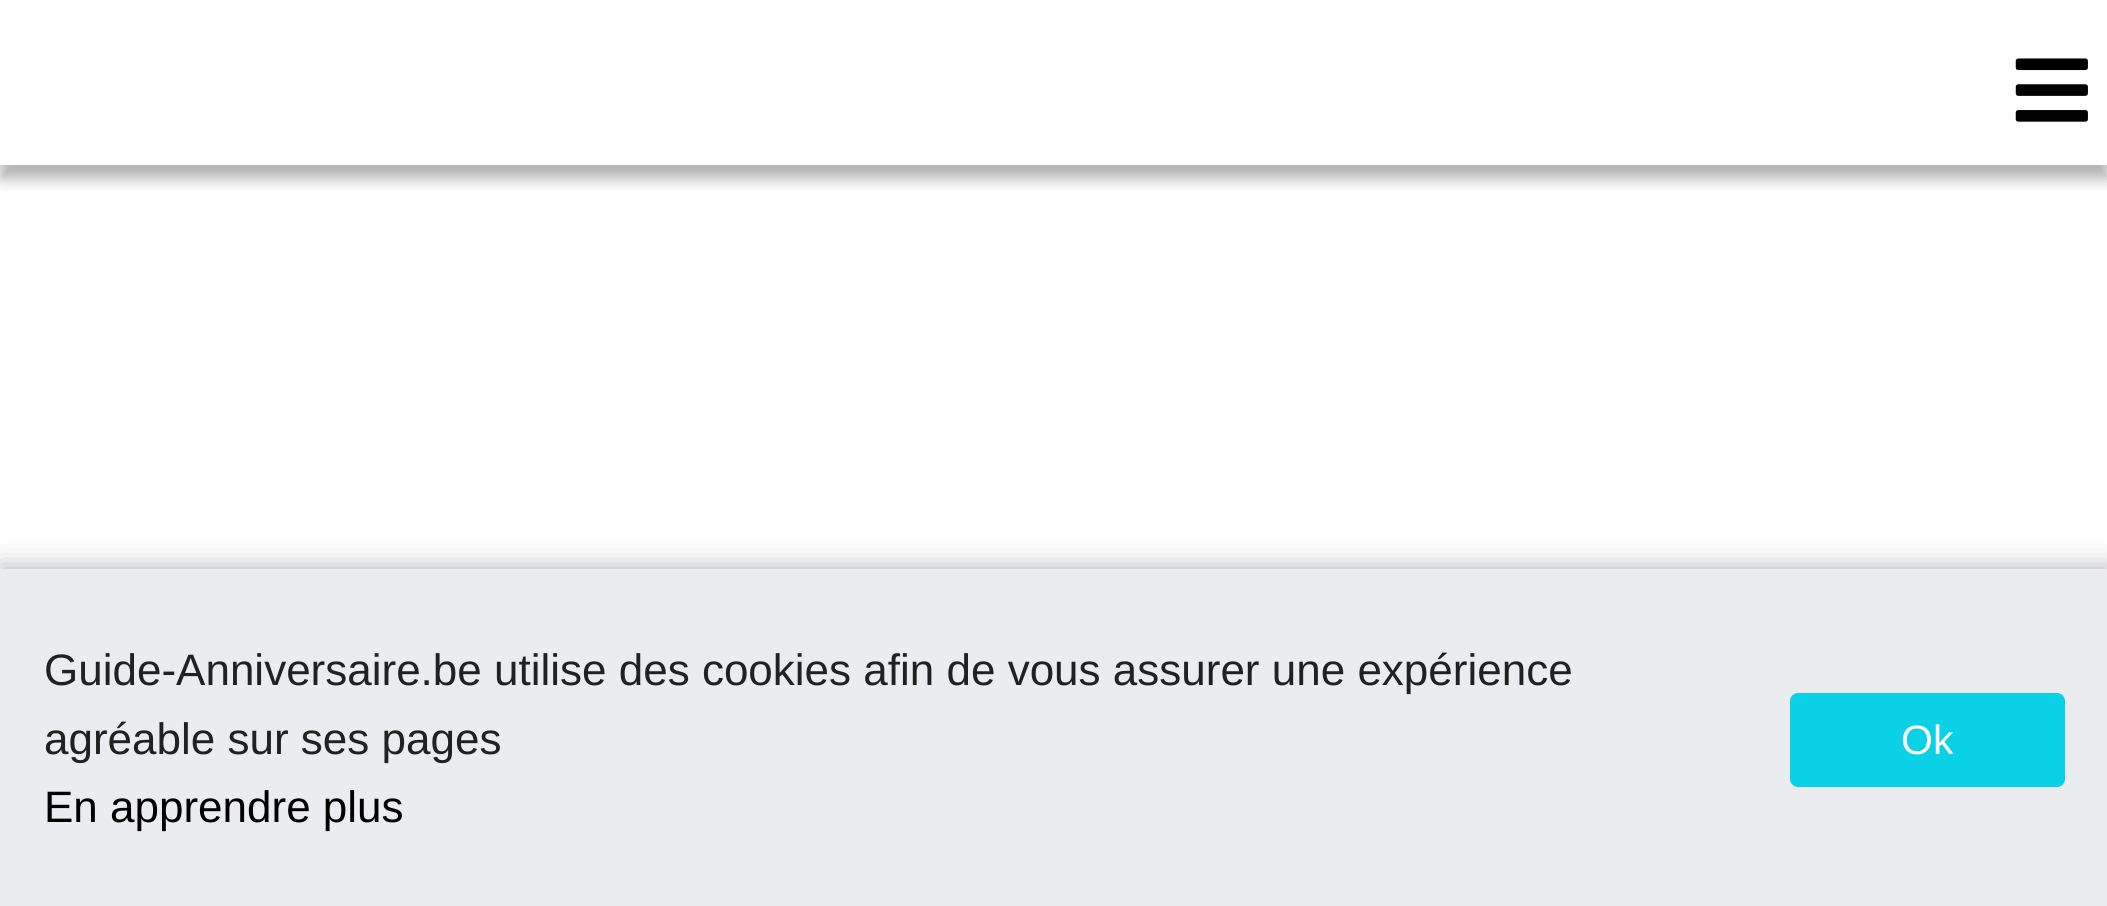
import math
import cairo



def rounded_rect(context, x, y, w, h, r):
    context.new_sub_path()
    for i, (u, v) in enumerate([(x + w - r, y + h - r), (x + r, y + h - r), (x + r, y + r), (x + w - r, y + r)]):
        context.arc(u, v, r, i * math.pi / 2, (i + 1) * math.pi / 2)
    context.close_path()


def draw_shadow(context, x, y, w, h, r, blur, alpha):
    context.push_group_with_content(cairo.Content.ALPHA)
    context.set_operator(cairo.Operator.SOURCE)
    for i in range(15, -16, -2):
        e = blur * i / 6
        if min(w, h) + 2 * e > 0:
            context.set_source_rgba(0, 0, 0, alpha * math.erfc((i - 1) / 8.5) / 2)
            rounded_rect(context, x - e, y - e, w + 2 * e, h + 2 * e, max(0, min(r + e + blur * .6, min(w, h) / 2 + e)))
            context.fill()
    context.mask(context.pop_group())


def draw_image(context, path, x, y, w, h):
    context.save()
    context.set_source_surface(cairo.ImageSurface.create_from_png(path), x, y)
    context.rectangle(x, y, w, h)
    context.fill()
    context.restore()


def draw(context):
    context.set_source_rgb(1, 1, 1)
    context.paint()
    context.save()
    context.rectangle(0, 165, 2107, 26)
    context.clip()
    context.set_source_rgb(66 / 255, 66 / 255, 66 / 255)
    draw_shadow(context, 0, 14, 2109, 165, 0, 7, 0.4)
    context.restore()
    draw_image(context, "images/1.png", 2015, 58, 73, 64)
    context.set_source_rgb(87 / 255, 87 / 255, 86 / 255)
    draw_shadow(context, 0, 569, 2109, 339, 0, 14, 0.5)
    context.set_source_rgb(235 / 255, 236 / 255, 239 / 255)
    context.rectangle(0, 569, 2107, 337)
    context.fill()
    context.set_source_rgb(11 / 255, 209 / 255, 230 / 255)
    rounded_rect(context, 1790, 693, 275, 94, 8)
    context.fill()
    context.select_font_face("Liberation Sans")
    context.set_font_size(44)
    context.set_source_rgb(33 / 255, 33 / 255, 33 / 255)
    context.move_to(44, 685)
    context.show_text("Guide-Anniversaire.be utilise des cookies afin de vous assurer une expérience")
    context.move_to(44, 754)
    context.show_text("agréable sur ses pages")
    context.set_source_rgb(0, 0, 0)
    context.move_to(44, 822)
    context.show_text("En apprendre plus")
    context.select_font_face("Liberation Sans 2")
    context.set_font_size(41)
    context.set_source_rgb(1, 1, 1)
    context.move_to(1901, 754)
    context.show_text("Ok")


surface = cairo.ImageSurface(cairo.Format.RGB24, 2107, 906)
context = cairo.Context(surface)
options = cairo.FontOptions()
options.set_hint_metrics(cairo.HintMetrics.OFF)
options.set_hint_style(cairo.HintStyle.NONE)
context.set_font_options(options)
context.set_miter_limit(4)
draw(context)
surface.write_to_png("out.png")
